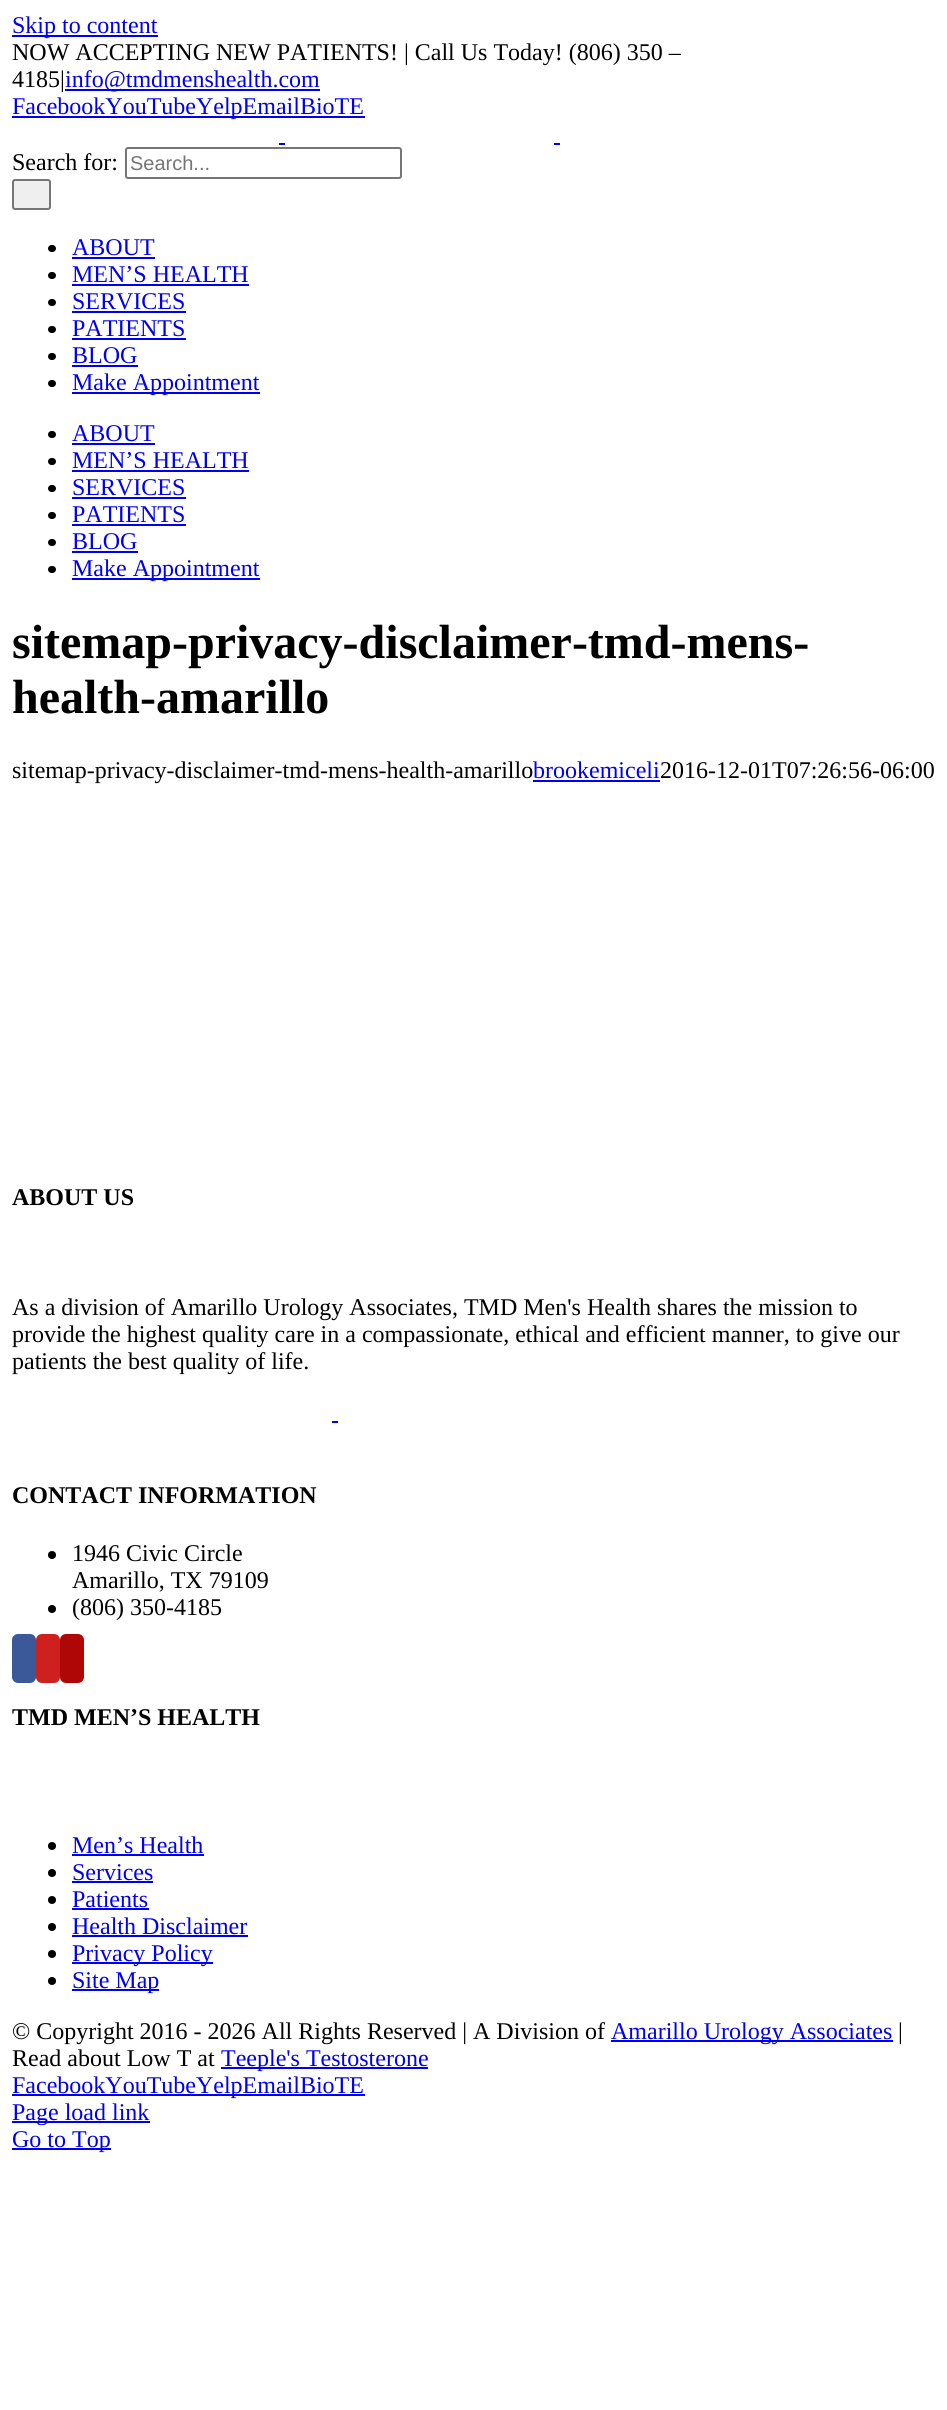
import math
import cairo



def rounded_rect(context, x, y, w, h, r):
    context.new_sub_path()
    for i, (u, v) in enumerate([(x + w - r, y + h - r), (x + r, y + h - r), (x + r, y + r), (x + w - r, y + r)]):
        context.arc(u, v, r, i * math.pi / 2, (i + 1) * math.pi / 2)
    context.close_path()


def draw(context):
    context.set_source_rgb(1, 1, 1)
    context.paint()
    context.set_source_rgb(0, 0, 238 / 255)
    context.rectangle(12, 35, 146, 2)
    context.fill()
    context.rectangle(65, 89, 255, 2)
    context.fill()
    context.rectangle(12, 116, 353, 2)
    context.fill()
    context.rectangle(279, 143, 6, 2)
    context.fill()
    context.rectangle(554, 143, 6, 2)
    context.fill()
    rounded_rect(context, 126, 148, 275, 30, 2)
    context.set_source_rgb(118 / 255, 118 / 255, 118 / 255)
    context.stroke()
    context.set_source_rgb(239 / 255, 239 / 255, 239 / 255)
    rounded_rect(context, 13, 180, 37, 29, 2)
    context.fill_preserve()
    context.set_source_rgb(118 / 255, 118 / 255, 118 / 255)
    context.stroke()
    context.set_source_rgb(0, 0, 0)
    rounded_rect(context, 48, 245, 8, 7, 3.5)
    context.fill()
    context.set_source_rgb(0, 0, 238 / 255)
    context.rectangle(72, 257, 83, 2)
    context.fill()
    context.set_source_rgb(0, 0, 0)
    rounded_rect(context, 48, 272, 8, 7, 3.5)
    context.fill()
    context.set_source_rgb(0, 0, 238 / 255)
    context.rectangle(72, 284, 177, 2)
    context.fill()
    context.set_source_rgb(0, 0, 0)
    rounded_rect(context, 48, 299, 8, 7, 3.5)
    context.fill()
    context.set_source_rgb(0, 0, 238 / 255)
    context.rectangle(72, 311, 114, 2)
    context.fill()
    context.set_source_rgb(0, 0, 0)
    rounded_rect(context, 48, 326, 8, 7, 3.5)
    context.fill()
    context.set_source_rgb(0, 0, 238 / 255)
    context.rectangle(72, 338, 114, 2)
    context.fill()
    context.set_source_rgb(0, 0, 0)
    rounded_rect(context, 48, 353, 8, 7, 3.5)
    context.fill()
    context.set_source_rgb(0, 0, 238 / 255)
    context.rectangle(72, 365, 66, 2)
    context.fill()
    context.set_source_rgb(0, 0, 0)
    rounded_rect(context, 48, 380, 8, 7, 3.5)
    context.fill()
    context.set_source_rgb(0, 0, 238 / 255)
    context.rectangle(72, 392, 188, 2)
    context.fill()
    context.set_source_rgb(0, 0, 0)
    rounded_rect(context, 48, 431, 8, 7, 3.5)
    context.fill()
    context.set_source_rgb(0, 0, 238 / 255)
    context.rectangle(72, 443, 83, 2)
    context.fill()
    context.set_source_rgb(0, 0, 0)
    rounded_rect(context, 48, 458, 8, 7, 3.5)
    context.fill()
    context.set_source_rgb(0, 0, 238 / 255)
    context.rectangle(72, 470, 177, 2)
    context.fill()
    context.set_source_rgb(0, 0, 0)
    rounded_rect(context, 48, 485, 8, 7, 3.5)
    context.fill()
    context.set_source_rgb(0, 0, 238 / 255)
    context.rectangle(72, 497, 114, 2)
    context.fill()
    context.set_source_rgb(0, 0, 0)
    rounded_rect(context, 48, 512, 8, 7, 3.5)
    context.fill()
    context.set_source_rgb(0, 0, 238 / 255)
    context.rectangle(72, 524, 114, 2)
    context.fill()
    context.set_source_rgb(0, 0, 0)
    rounded_rect(context, 48, 539, 8, 7, 3.5)
    context.fill()
    context.set_source_rgb(0, 0, 238 / 255)
    context.rectangle(72, 551, 66, 2)
    context.fill()
    context.set_source_rgb(0, 0, 0)
    rounded_rect(context, 48, 566, 8, 7, 3.5)
    context.fill()
    context.set_source_rgb(0, 0, 238 / 255)
    context.rectangle(72, 578, 188, 2)
    context.fill()
    context.rectangle(533, 780, 127, 2)
    context.fill()
    context.rectangle(332, 1421, 6, 2)
    context.fill()
    context.set_source_rgb(0, 0, 0)
    context.arc(52, 1555, 4, 0, 2 * math.pi)
    context.fill()
    context.arc(52, 1609, 4, 0, 2 * math.pi)
    context.fill()
    context.set_source_rgb(59 / 255, 89 / 255, 152 / 255)
    rounded_rect(context, 12, 1634, 24, 49, 6)
    context.fill()
    context.set_source_rgb(205 / 255, 32 / 255, 31 / 255)
    rounded_rect(context, 36, 1634, 24, 49, 6)
    context.fill()
    context.set_source_rgb(175 / 255, 6 / 255, 6 / 255)
    rounded_rect(context, 60, 1634, 24, 49, 6)
    context.fill()
    context.set_source_rgb(0, 0, 0)
    context.arc(52, 1846, 4, 0, 2 * math.pi)
    context.fill()
    context.set_source_rgb(0, 0, 238 / 255)
    context.rectangle(72, 1854, 132, 2)
    context.fill()
    context.set_source_rgb(0, 0, 0)
    context.arc(52, 1873, 4, 0, 2 * math.pi)
    context.fill()
    context.set_source_rgb(0, 0, 238 / 255)
    context.rectangle(72, 1881, 81, 2)
    context.fill()
    context.set_source_rgb(0, 0, 0)
    context.arc(52, 1900, 4, 0, 2 * math.pi)
    context.fill()
    context.set_source_rgb(0, 0, 238 / 255)
    context.rectangle(72, 1908, 77, 2)
    context.fill()
    context.set_source_rgb(0, 0, 0)
    context.arc(52, 1927, 4, 0, 2 * math.pi)
    context.fill()
    context.set_source_rgb(0, 0, 238 / 255)
    context.rectangle(72, 1935, 176, 2)
    context.fill()
    context.set_source_rgb(0, 0, 0)
    context.arc(52, 1954, 4, 0, 2 * math.pi)
    context.fill()
    context.set_source_rgb(0, 0, 238 / 255)
    context.rectangle(72, 1962, 141, 2)
    context.fill()
    context.set_source_rgb(0, 0, 0)
    context.arc(52, 1981, 4, 0, 2 * math.pi)
    context.fill()
    context.set_source_rgb(0, 0, 238 / 255)
    context.rectangle(72, 1989, 87, 2)
    context.fill()
    context.rectangle(611, 2040, 282, 2)
    context.fill()
    context.rectangle(221, 2067, 207, 2)
    context.fill()
    context.rectangle(12, 2094, 353, 2)
    context.fill()
    context.rectangle(12, 2121, 138, 2)
    context.fill()
    context.rectangle(12, 2148, 99, 2)
    context.fill()
    context.select_font_face("Liberation Serif")
    context.set_font_size(24)
    context.move_to(12, 33)
    context.show_text("Skip to content")
    context.set_source_rgb(0, 0, 0)
    context.move_to(12, 60)
    context.show_text("NOW ACCEPTING NEW PATIENTS! | Call Us Today! (806) 350 –")
    context.move_to(12, 87)
    context.show_text("4185|")
    context.set_source_rgb(0, 0, 238 / 255)
    context.move_to(65, 87)
    context.show_text("info@tmdmenshealth.com")
    context.move_to(12, 114)
    context.show_text("FacebookYouTubeYelpEmailBioTE")
    context.set_source_rgb(0, 0, 0)
    context.move_to(12, 170)
    context.show_text("Search for:")
    context.select_font_face("Liberation Sans")
    context.set_font_size(20)
    context.set_source_rgb(117 / 255, 117 / 255, 117 / 255)
    context.move_to(130, 170)
    context.show_text("Search...")
    context.select_font_face("Liberation Serif")
    context.set_font_size(24)
    context.set_source_rgb(0, 0, 238 / 255)
    context.move_to(72, 255)
    context.show_text("ABOUT")
    context.move_to(72, 282)
    context.show_text("MEN’S HEALTH")
    context.move_to(72, 309)
    context.show_text("SERVICES")
    context.move_to(72, 336)
    context.show_text("PATIENTS")
    context.move_to(72, 363)
    context.show_text("BLOG")
    context.move_to(72, 390)
    context.show_text("Make Appointment")
    context.move_to(72, 441)
    context.show_text("ABOUT")
    context.move_to(72, 468)
    context.show_text("MEN’S HEALTH")
    context.move_to(72, 495)
    context.show_text("SERVICES")
    context.move_to(72, 522)
    context.show_text("PATIENTS")
    context.move_to(72, 549)
    context.show_text("BLOG")
    context.move_to(72, 576)
    context.show_text("Make Appointment")
    context.select_font_face("Liberation Serif", cairo.FontSlant.NORMAL, cairo.FontWeight.BOLD)
    context.set_font_size(48)
    context.set_source_rgb(0, 0, 0)
    context.move_to(12, 658)
    context.show_text("sitemap-privacy-disclaimer-tmd-mens-")
    context.move_to(12, 713)
    context.show_text("health-amarillo")
    context.select_font_face("Liberation Serif")
    context.set_font_size(24)
    context.move_to(12, 778)
    context.show_text("sitemap-privacy-disclaimer-tmd-mens-health-amarillo")
    context.set_source_rgb(0, 0, 238 / 255)
    context.move_to(533, 778)
    context.show_text("brookemiceli")
    context.set_source_rgb(0, 0, 0)
    context.move_to(660, 778)
    context.show_text("2016-12-01T07:26:56-06:00")
    context.select_font_face("Liberation Serif", cairo.FontSlant.NORMAL, cairo.FontWeight.BOLD)
    context.move_to(12, 1205)
    context.show_text("ABOUT US")
    context.select_font_face("Liberation Serif")
    context.move_to(12, 1315)
    context.show_text("As a division of Amarillo Urology Associates, TMD Men's Health shares the mission to")
    context.move_to(12, 1342)
    context.show_text("provide the highest quality care in a compassionate, ethical and efficient manner, to give our")
    context.move_to(12, 1369)
    context.show_text("patients the best quality of life.")
    context.select_font_face("Liberation Serif", cairo.FontSlant.NORMAL, cairo.FontWeight.BOLD)
    context.move_to(12, 1503)
    context.show_text("CONTACT INFORMATION")
    context.select_font_face("Liberation Serif")
    context.move_to(72, 1561)
    context.show_text("1946 Civic Circle")
    context.move_to(72, 1588)
    context.show_text("Amarillo, TX 79109")
    context.move_to(72, 1615)
    context.show_text("(806) 350-4185")
    context.select_font_face("Liberation Serif", cairo.FontSlant.NORMAL, cairo.FontWeight.BOLD)
    context.move_to(12, 1725)
    context.show_text("TMD MEN’S HEALTH")
    context.select_font_face("Liberation Serif")
    context.set_source_rgb(0, 0, 238 / 255)
    context.move_to(72, 1853)
    context.show_text("Men’s Health")
    context.move_to(72, 1880)
    context.show_text("Services")
    context.move_to(72, 1907)
    context.show_text("Patients")
    context.move_to(72, 1934)
    context.show_text("Health Disclaimer")
    context.move_to(72, 1961)
    context.show_text("Privacy Policy")
    context.move_to(72, 1988)
    context.show_text("Site Map")
    context.set_source_rgb(0, 0, 0)
    context.move_to(12, 2039)
    context.show_text("© Copyright 2016 - 2026 All Rights Reserved | A Division of")
    context.set_source_rgb(0, 0, 238 / 255)
    context.move_to(611, 2039)
    context.show_text("Amarillo Urology Associates")
    context.set_source_rgb(0, 0, 0)
    context.move_to(898, 2039)
    context.show_text("|")
    context.move_to(12, 2066)
    context.show_text("Read about Low T at")
    context.set_source_rgb(0, 0, 238 / 255)
    context.move_to(221, 2066)
    context.show_text("Teeple's Testosterone")
    context.move_to(12, 2093)
    context.show_text("FacebookYouTubeYelpEmailBioTE")
    context.move_to(12, 2120)
    context.show_text("Page load link")
    context.move_to(12, 2147)
    context.show_text("Go to Top")


surface = cairo.ImageSurface(cairo.Format.RGB24, 947, 2410)
context = cairo.Context(surface)
options = cairo.FontOptions()
options.set_hint_metrics(cairo.HintMetrics.OFF)
options.set_hint_style(cairo.HintStyle.NONE)
context.set_font_options(options)
context.set_miter_limit(4)
draw(context)
surface.write_to_png("out.png")
